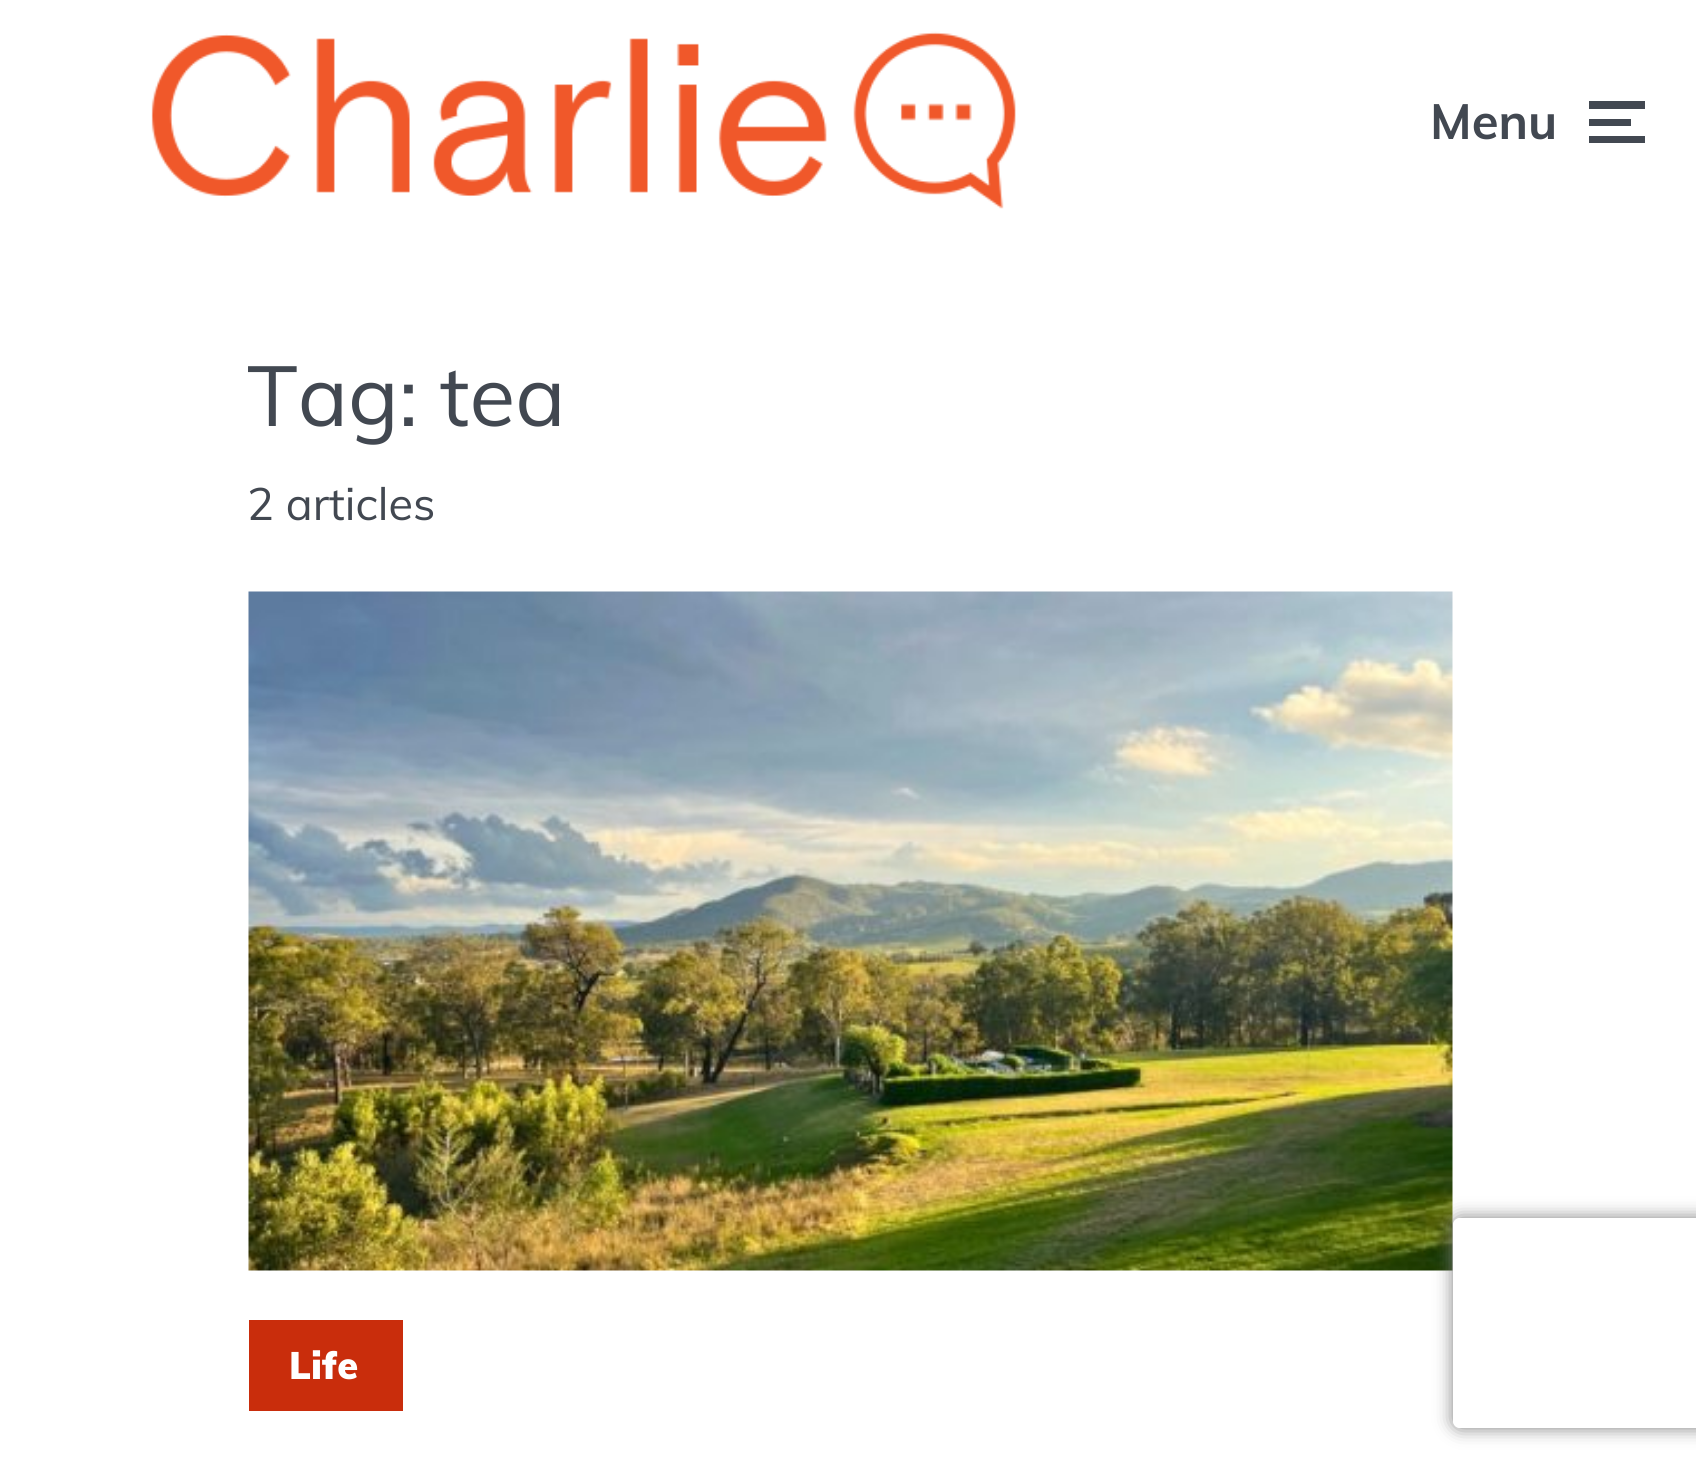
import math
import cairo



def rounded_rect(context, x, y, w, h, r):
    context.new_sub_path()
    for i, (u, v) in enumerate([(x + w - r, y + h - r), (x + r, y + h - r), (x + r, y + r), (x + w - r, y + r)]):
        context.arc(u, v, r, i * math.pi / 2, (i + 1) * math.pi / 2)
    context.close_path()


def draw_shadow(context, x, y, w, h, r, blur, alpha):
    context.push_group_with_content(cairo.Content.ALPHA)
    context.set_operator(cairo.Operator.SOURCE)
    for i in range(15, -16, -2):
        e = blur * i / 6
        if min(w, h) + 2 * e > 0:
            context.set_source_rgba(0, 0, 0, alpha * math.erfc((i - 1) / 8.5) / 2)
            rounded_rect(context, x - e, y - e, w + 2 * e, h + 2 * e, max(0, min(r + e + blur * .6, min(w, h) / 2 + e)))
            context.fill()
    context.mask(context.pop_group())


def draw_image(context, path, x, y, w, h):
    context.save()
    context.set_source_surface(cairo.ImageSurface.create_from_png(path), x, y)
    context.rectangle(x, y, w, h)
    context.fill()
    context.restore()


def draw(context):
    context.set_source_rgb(1, 1, 1)
    context.paint()
    draw_image(context, "images/1.png", 151, 31, 865, 178)
    context.set_source_rgb(66 / 255, 72 / 255, 81 / 255)
    context.new_path()
    context.move_to(1589, 126)
    context.line_to(1589, 119)
    context.line_to(1631, 119)
    context.line_to(1631, 126)
    context.close_path()
    context.move_to(1589, 143)
    context.line_to(1589, 136)
    context.line_to(1645, 136)
    context.line_to(1645, 143)
    context.close_path()
    context.move_to(1589, 109)
    context.line_to(1589, 101)
    context.line_to(1645, 101)
    context.line_to(1645, 109)
    context.close_path()
    context.fill()
    draw_image(context, "images/2.png", 248, 591, 1205, 680)
    context.set_source_rgb(201 / 255, 45 / 255, 12 / 255)
    context.rectangle(249, 1320, 154, 91)
    context.fill()
    context.save()
    context.set_fill_rule(cairo.FillRule.EVEN_ODD)
    context.new_path()
    context.move_to(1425, 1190)
    context.line_to(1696, 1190)
    context.line_to(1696, 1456)
    context.line_to(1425, 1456)
    context.close_path()
    context.move_to(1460, 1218)
    context.line_to(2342, 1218)
    context.curve_to(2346, 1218, 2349, 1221, 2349, 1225)
    context.line_to(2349, 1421)
    context.curve_to(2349, 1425, 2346, 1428, 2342, 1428)
    context.line_to(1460, 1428)
    context.curve_to(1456, 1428, 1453, 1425, 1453, 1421)
    context.line_to(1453, 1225)
    context.curve_to(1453, 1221, 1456, 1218, 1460, 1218)
    context.close_path()
    context.clip()
    context.set_source_rgb(128 / 255, 128 / 255, 128 / 255)
    draw_shadow(context, 1453, 1218, 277, 210, 7, 9, 1)
    context.restore()
    context.select_font_face("Muli", cairo.FontSlant.NORMAL, cairo.FontWeight.BOLD)
    context.set_font_size(49)
    context.set_source_rgb(66 / 255, 72 / 255, 81 / 255)
    context.move_to(1430, 139)
    context.show_text("Menu")
    context.select_font_face("Muli")
    context.set_font_size(84)
    context.move_to(247, 426)
    context.show_text("Tag: tea")
    context.set_font_size(45)
    context.move_to(247, 520)
    context.show_text("2 articles")
    context.select_font_face("Muli Black")
    context.set_font_size(38)
    context.set_source_rgb(1, 1, 1)
    context.move_to(289, 1379)
    context.show_text("Life")


surface = cairo.ImageSurface(cairo.Format.RGB24, 1696, 1477)
context = cairo.Context(surface)
options = cairo.FontOptions()
options.set_hint_metrics(cairo.HintMetrics.OFF)
options.set_hint_style(cairo.HintStyle.NONE)
context.set_font_options(options)
context.set_miter_limit(4)
draw(context)
surface.write_to_png("out.png")
